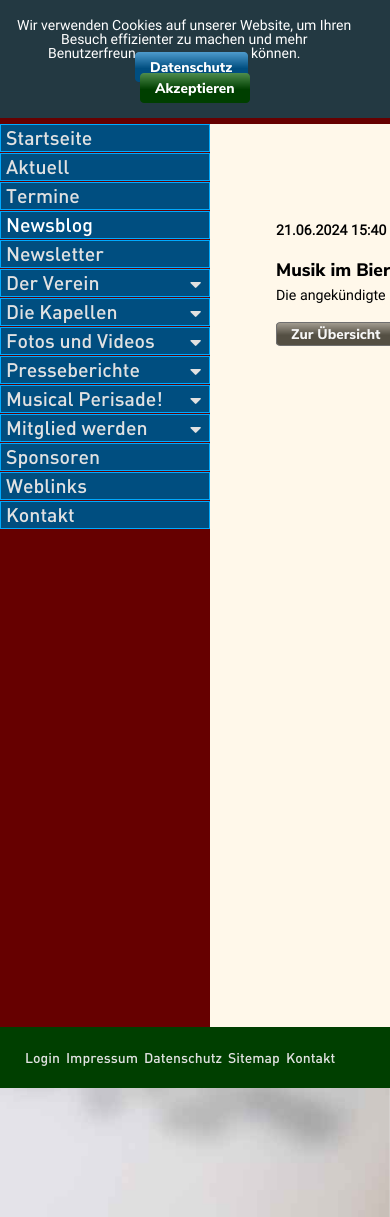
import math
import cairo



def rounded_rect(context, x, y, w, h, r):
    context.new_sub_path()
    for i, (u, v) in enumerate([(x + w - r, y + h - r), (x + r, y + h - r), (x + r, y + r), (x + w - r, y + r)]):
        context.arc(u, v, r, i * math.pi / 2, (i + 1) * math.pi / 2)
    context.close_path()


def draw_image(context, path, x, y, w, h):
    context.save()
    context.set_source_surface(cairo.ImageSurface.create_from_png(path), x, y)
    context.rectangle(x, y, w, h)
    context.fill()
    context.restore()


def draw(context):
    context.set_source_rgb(1, 1, 1)
    context.paint()
    draw_image(context, "images/1.png", 0, 1088, 390, 129)
    context.set_source_rgb(35 / 255, 57 / 255, 66 / 255)
    context.rectangle(0, 0, 390, 118)
    context.fill()
    gradient = cairo.LinearGradient(192, 52, 192, 82)
    gradient.add_color_stop_rgba(0, 78 / 255, 155 / 255, 205 / 255, 1)
    gradient.add_color_stop_rgba(0.55, 0, 78 / 255, 128 / 255, 1)
    gradient.add_color_stop_rgba(1, 0, 78 / 255, 128 / 255, 1)
    context.set_source(gradient)
    rounded_rect(context, 135, 52, 113, 30, 4)
    context.fill()
    gradient = cairo.LinearGradient(195, 73, 195, 103)
    gradient.add_color_stop_rgba(0, 78 / 255, 140 / 255, 77 / 255, 1)
    gradient.add_color_stop_rgba(0.55, 0, 63 / 255, 0, 1)
    gradient.add_color_stop_rgba(1, 0, 63 / 255, 0, 1)
    context.set_source(gradient)
    rounded_rect(context, 140, 73, 110, 30, 4)
    context.fill()
    context.set_source_rgb(102 / 255, 0, 0)
    context.rectangle(0, 118, 390, 6)
    context.fill()
    draw_image(context, "images/2.png", 0, 124, 390, 903)
    context.set_source_rgb(0, 78 / 255, 128 / 255)
    context.rectangle(0.5, 124.5, 209, 27)
    context.fill_preserve()
    context.set_source_rgb(0, 170 / 255, 1)
    context.set_line_width(1)
    context.stroke()
    context.set_source_rgb(0, 78 / 255, 128 / 255)
    context.rectangle(0.5, 153.5, 209, 27)
    context.fill_preserve()
    context.set_source_rgb(0, 170 / 255, 1)
    context.stroke()
    context.set_source_rgb(0, 78 / 255, 128 / 255)
    context.rectangle(0.5, 182.5, 209, 27)
    context.fill_preserve()
    context.set_source_rgb(0, 170 / 255, 1)
    context.stroke()
    context.set_source_rgb(0, 78 / 255, 128 / 255)
    context.rectangle(0.5, 211.5, 209, 27)
    context.fill_preserve()
    context.set_source_rgb(0, 170 / 255, 1)
    context.stroke()
    context.set_source_rgb(0, 78 / 255, 128 / 255)
    context.rectangle(0.5, 240.5, 209, 27)
    context.fill_preserve()
    context.set_source_rgb(0, 170 / 255, 1)
    context.stroke()
    context.set_source_rgb(0, 78 / 255, 128 / 255)
    context.rectangle(0.5, 269.5, 209, 27)
    context.fill_preserve()
    context.set_source_rgb(0, 170 / 255, 1)
    context.stroke()
    draw_image(context, "images/3.png", 190, 282, 11, 6)
    context.set_source_rgb(0, 78 / 255, 128 / 255)
    context.rectangle(0.5, 298.5, 209, 27)
    context.fill_preserve()
    context.set_source_rgb(0, 170 / 255, 1)
    context.stroke()
    draw_image(context, "images/3.png", 190, 311, 11, 6)
    context.set_source_rgb(0, 78 / 255, 128 / 255)
    context.rectangle(0.5, 327.5, 209, 27)
    context.fill_preserve()
    context.set_source_rgb(0, 170 / 255, 1)
    context.stroke()
    draw_image(context, "images/3.png", 190, 340, 11, 6)
    context.set_source_rgb(0, 78 / 255, 128 / 255)
    context.rectangle(0.5, 356.5, 209, 27)
    context.fill_preserve()
    context.set_source_rgb(0, 170 / 255, 1)
    context.stroke()
    draw_image(context, "images/3.png", 190, 369, 11, 6)
    context.set_source_rgb(0, 78 / 255, 128 / 255)
    context.rectangle(0.5, 385.5, 209, 27)
    context.fill_preserve()
    context.set_source_rgb(0, 170 / 255, 1)
    context.stroke()
    draw_image(context, "images/3.png", 190, 398, 11, 6)
    context.set_source_rgb(0, 78 / 255, 128 / 255)
    context.rectangle(0.5, 414.5, 209, 27)
    context.fill_preserve()
    context.set_source_rgb(0, 170 / 255, 1)
    context.stroke()
    draw_image(context, "images/3.png", 190, 427, 11, 6)
    context.set_source_rgb(0, 78 / 255, 128 / 255)
    context.rectangle(0.5, 443.5, 209, 27)
    context.fill_preserve()
    context.set_source_rgb(0, 170 / 255, 1)
    context.stroke()
    context.set_source_rgb(0, 78 / 255, 128 / 255)
    context.rectangle(0.5, 472.5, 209, 27)
    context.fill_preserve()
    context.set_source_rgb(0, 170 / 255, 1)
    context.stroke()
    context.set_source_rgb(0, 78 / 255, 128 / 255)
    context.rectangle(0.5, 501.5, 209, 27)
    context.fill_preserve()
    context.set_source_rgb(0, 170 / 255, 1)
    context.stroke()
    context.save()
    rounded_rect(context, 276, 322, 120, 24, 4)
    context.clip()
    gradient = cairo.LinearGradient(336, 323, 336, 345)
    gradient.add_color_stop_rgba(0, 162 / 255, 156 / 255, 144 / 255, 1)
    gradient.add_color_stop_rgba(0.55, 84 / 255, 79 / 255, 67 / 255, 1)
    gradient.add_color_stop_rgba(1, 84 / 255, 79 / 255, 67 / 255, 1)
    context.set_source(gradient)
    context.rectangle(276, 323, 114, 22)
    context.fill()
    context.restore()
    rounded_rect(context, 276.5, 322.5, 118, 23, 3.5)
    context.set_source_rgb(112 / 255, 112 / 255, 112 / 255)
    context.stroke()
    context.set_source_rgb(0, 63 / 255, 0)
    context.rectangle(0, 1027, 390, 61)
    context.fill()
    context.select_font_face("Roboto")
    context.set_font_size(14)
    context.set_source_rgb(1, 1, 1)
    context.move_to(17, 30)
    context.show_text("Wir verwenden Cookies auf unserer Website, um Ihren")
    context.move_to(61, 44)
    context.show_text("Besuch effizienter zu machen und mehr")
    context.move_to(48, 58)
    context.show_text("Benutzerfreun")
    context.move_to(251, 58)
    context.show_text("können.")
    context.select_font_face("Nunito Sans ExtraBold")
    context.move_to(150, 72)
    context.show_text("Datenschutz")
    context.move_to(155, 93)
    context.show_text("Akzeptieren")
    context.select_font_face("DIN Medium")
    context.set_font_size(19.5)
    context.set_source_rgb(225 / 255, 225 / 255, 225 / 255)
    context.move_to(6, 145)
    context.show_text("Startseite")
    context.move_to(6, 174)
    context.show_text("Aktuell")
    context.move_to(6, 203)
    context.show_text("Termine")
    context.set_source_rgb(1, 1, 1)
    context.move_to(6, 232)
    context.show_text("Newsblog")
    context.set_source_rgb(225 / 255, 225 / 255, 225 / 255)
    context.move_to(6, 261)
    context.show_text("Newsletter")
    context.move_to(6, 290)
    context.show_text("Der Verein")
    context.move_to(6, 319)
    context.show_text("Die Kapellen")
    context.move_to(6, 348)
    context.show_text("Fotos und Videos")
    context.move_to(6, 377)
    context.show_text("Presseberichte")
    context.move_to(6, 406)
    context.show_text("Musical Perisade!")
    context.move_to(6, 435)
    context.show_text("Mitglied werden")
    context.move_to(6, 464)
    context.show_text("Sponsoren")
    context.move_to(6, 493)
    context.show_text("Weblinks")
    context.move_to(6, 522)
    context.show_text("Kontakt")
    context.select_font_face("Roboto", cairo.FontSlant.NORMAL, cairo.FontWeight.BOLD)
    context.set_font_size(14.25)
    context.set_source_rgb(0, 0, 0)
    context.move_to(276, 235)
    context.show_text("21.06.2024 15:40")
    context.select_font_face("Nunito Sans ExtraBold")
    context.set_font_size(18)
    context.move_to(276, 276)
    context.show_text("Musik im Bier")
    context.select_font_face("Roboto")
    context.set_font_size(14.25)
    context.move_to(276, 300)
    context.show_text("Die angekündigte")
    context.select_font_face("Nunito Sans ExtraBold")
    context.set_font_size(14)
    context.set_source_rgb(247 / 255, 247 / 255, 247 / 255)
    context.move_to(291, 339)
    context.show_text("Zur Übersicht")
    context.select_font_face("DIN Medium")
    context.set_source_rgb(225 / 255, 225 / 255, 225 / 255)
    context.move_to(25, 1063)
    context.show_text("Login")
    context.move_to(66, 1063)
    context.show_text("Impressum")
    context.move_to(144, 1063)
    context.show_text("Datenschutz")
    context.move_to(228, 1063)
    context.show_text("Sitemap")
    context.move_to(286, 1063)
    context.show_text("Kontakt")


surface = cairo.ImageSurface(cairo.Format.RGB24, 390, 1217)
context = cairo.Context(surface)
options = cairo.FontOptions()
options.set_hint_metrics(cairo.HintMetrics.OFF)
options.set_hint_style(cairo.HintStyle.NONE)
context.set_font_options(options)
context.set_miter_limit(4)
draw(context)
surface.write_to_png("out.png")
